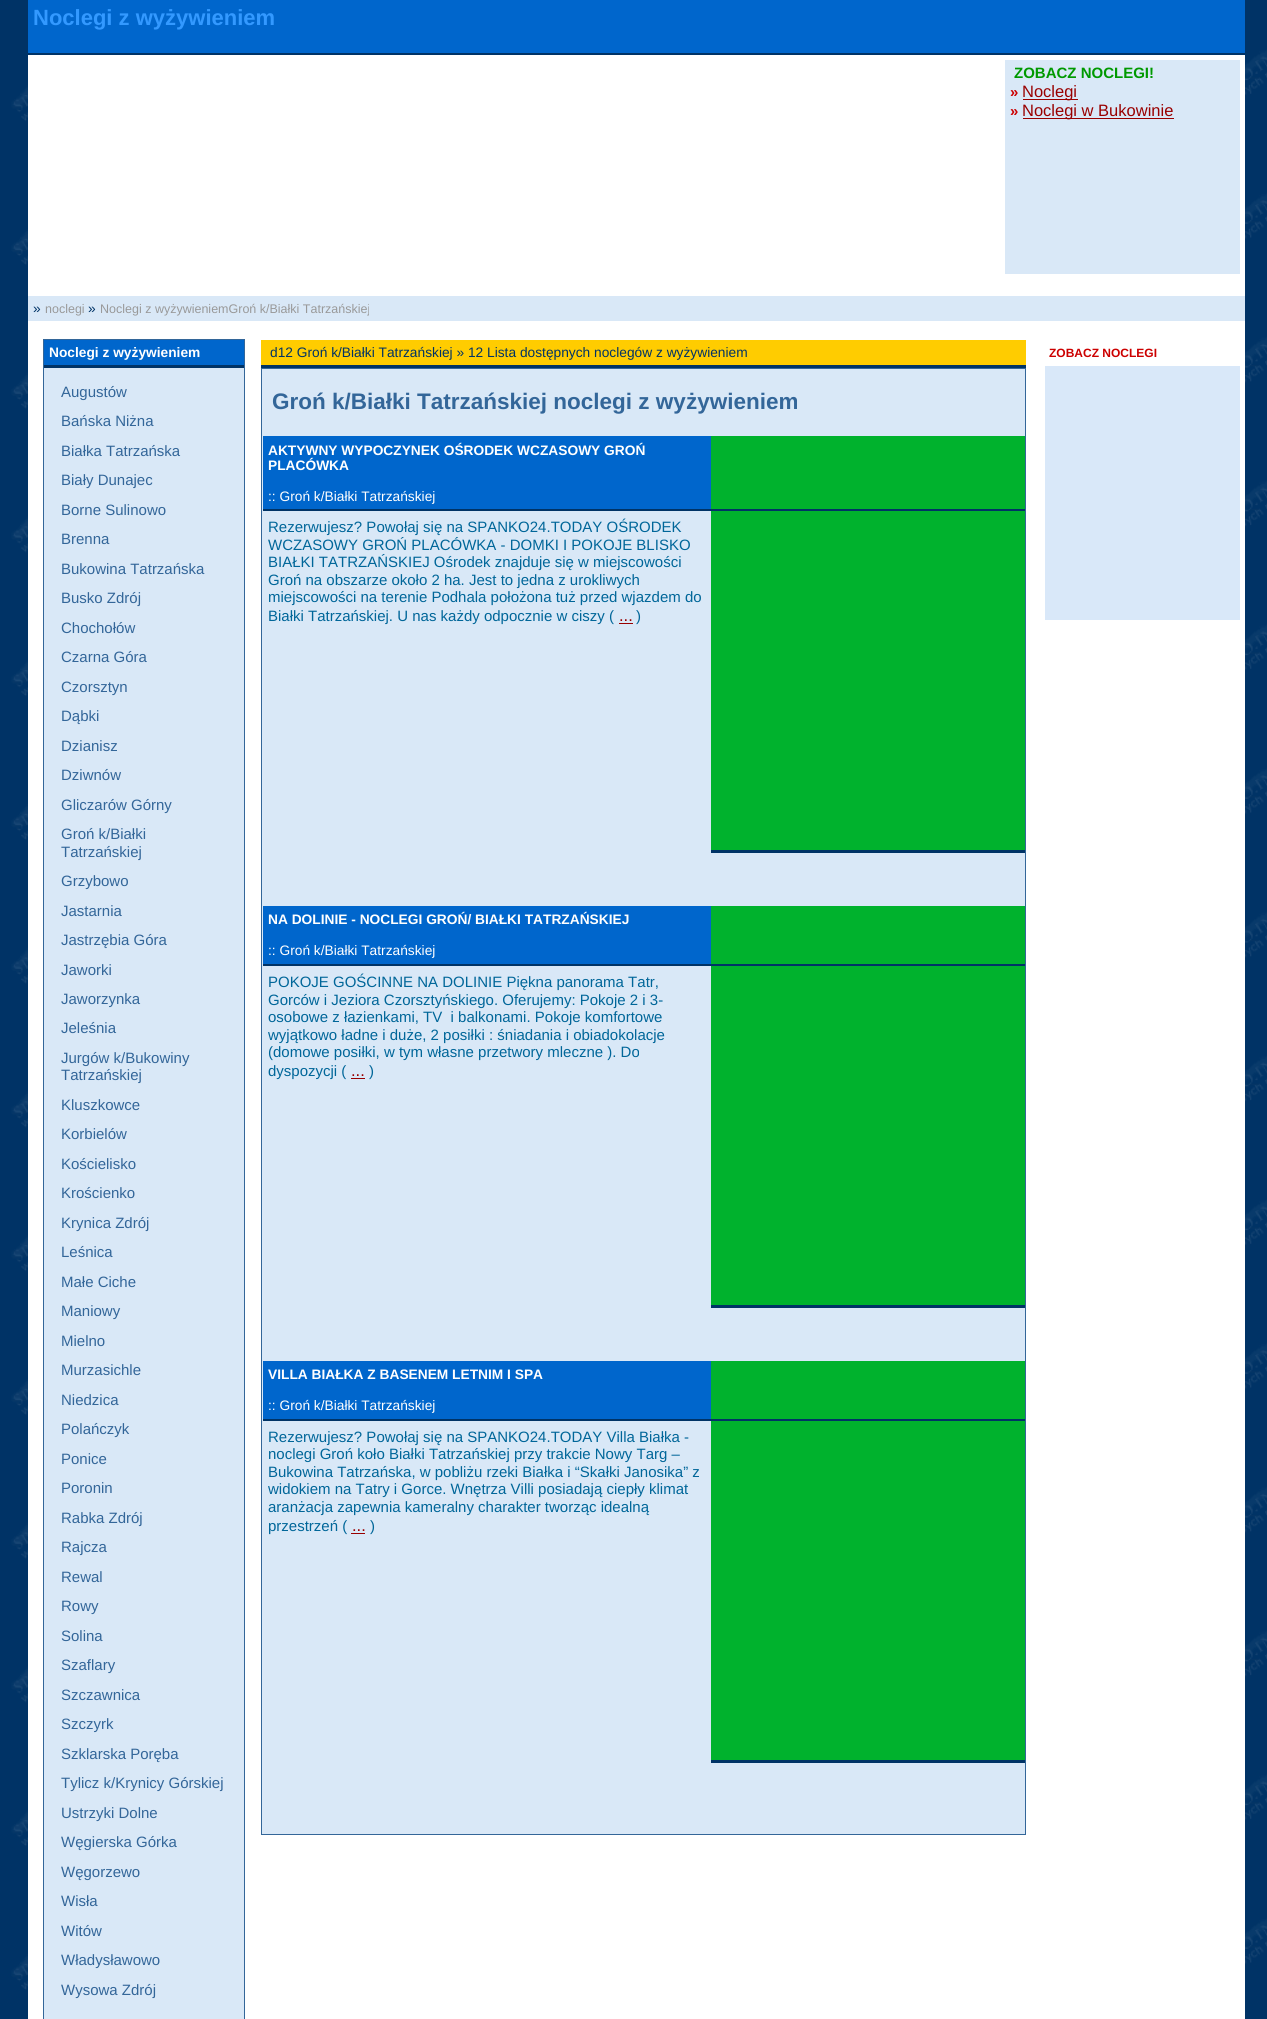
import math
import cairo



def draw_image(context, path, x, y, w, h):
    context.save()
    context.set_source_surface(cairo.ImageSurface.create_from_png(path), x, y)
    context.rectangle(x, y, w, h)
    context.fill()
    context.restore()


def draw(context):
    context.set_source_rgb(1, 1, 1)
    context.paint()
    draw_image(context, "images/1.png", 0, 0, 1267, 2019)
    context.set_source_rgb(0, 102 / 255, 204 / 255)
    context.rectangle(28, 0, 1217, 53)
    context.fill()
    context.set_source_rgb(0, 51 / 255, 102 / 255)
    context.rectangle(77, 53, 1062, 2)
    context.fill()
    context.set_source_rgb(1, 1, 1)
    context.rectangle(28, 55, 1217, 1964)
    context.fill()
    context.set_source_rgb(217 / 255, 232 / 255, 247 / 255)
    context.rectangle(1005, 60, 235, 214)
    context.fill()
    context.set_source_rgb(153 / 255, 0, 0)
    context.rectangle(1023, 99, 55, 1)
    context.fill()
    context.rectangle(1023, 118, 151, 1)
    context.fill()
    context.set_source_rgb(217 / 255, 232 / 255, 247 / 255)
    context.rectangle(28, 296, 1217, 25)
    context.fill()
    context.rectangle(44, 368, 200, 1651)
    context.fill()
    context.rectangle(43.5, 339.5, 201, 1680)
    context.set_source_rgb(51 / 255, 102 / 255, 153 / 255)
    context.set_line_width(1)
    context.stroke()
    context.set_source_rgb(0, 102 / 255, 204 / 255)
    context.rectangle(44, 340, 200, 25)
    context.fill()
    context.set_source_rgb(0, 51 / 255, 102 / 255)
    context.rectangle(44, 365, 200, 3)
    context.fill()
    context.set_source_rgb(1, 204 / 255, 0)
    context.rectangle(261, 340, 765, 25)
    context.fill()
    context.set_source_rgb(0, 51 / 255, 102 / 255)
    context.rectangle(261, 365, 765, 3)
    context.fill()
    context.set_source_rgb(217 / 255, 232 / 255, 247 / 255)
    context.rectangle(261.5, 368.5, 764, 1466)
    context.fill_preserve()
    context.set_source_rgb(51 / 255, 102 / 255, 153 / 255)
    context.stroke()
    context.set_source_rgb(0, 102 / 255, 204 / 255)
    context.rectangle(263, 436, 448, 73)
    context.fill()
    context.set_source_rgb(0, 51 / 255, 102 / 255)
    context.rectangle(263, 509, 762, 2)
    context.fill()
    context.set_source_rgb(0, 178 / 255, 45 / 255)
    context.rectangle(711, 436, 314, 73)
    context.fill()
    context.set_source_rgb(153 / 255, 0, 0)
    context.rectangle(619, 623, 14, 1)
    context.fill()
    context.set_source_rgb(0, 178 / 255, 45 / 255)
    context.rectangle(711, 511, 314, 339)
    context.fill()
    context.set_source_rgb(0, 51 / 255, 102 / 255)
    context.rectangle(711, 850, 314, 3)
    context.fill()
    context.set_source_rgb(0, 102 / 255, 204 / 255)
    context.rectangle(263, 906, 448, 58)
    context.fill()
    context.set_source_rgb(0, 51 / 255, 102 / 255)
    context.rectangle(263, 964, 762, 2)
    context.fill()
    context.set_source_rgb(0, 178 / 255, 45 / 255)
    context.rectangle(711, 906, 314, 58)
    context.fill()
    context.set_source_rgb(153 / 255, 0, 0)
    context.rectangle(351, 1078, 14, 1)
    context.fill()
    context.set_source_rgb(0, 178 / 255, 45 / 255)
    context.rectangle(711, 966, 314, 339)
    context.fill()
    context.set_source_rgb(0, 51 / 255, 102 / 255)
    context.rectangle(711, 1305, 314, 3)
    context.fill()
    context.set_source_rgb(0, 102 / 255, 204 / 255)
    context.rectangle(263, 1361, 448, 58)
    context.fill()
    context.set_source_rgb(0, 51 / 255, 102 / 255)
    context.rectangle(263, 1419, 762, 2)
    context.fill()
    context.set_source_rgb(0, 178 / 255, 45 / 255)
    context.rectangle(711, 1361, 314, 58)
    context.fill()
    context.set_source_rgb(153 / 255, 0, 0)
    context.rectangle(351, 1533, 14, 1)
    context.fill()
    context.set_source_rgb(0, 178 / 255, 45 / 255)
    context.rectangle(711, 1421, 314, 339)
    context.fill()
    context.set_source_rgb(0, 51 / 255, 102 / 255)
    context.rectangle(711, 1760, 314, 3)
    context.fill()
    context.set_source_rgb(217 / 255, 232 / 255, 249 / 255)
    context.rectangle(1045, 366, 195, 254)
    context.fill()
    context.select_font_face("Liberation Sans", cairo.FontSlant.NORMAL, cairo.FontWeight.BOLD)
    context.set_font_size(22)
    context.set_source_rgb(51 / 255, 153 / 255, 1)
    context.move_to(33, 25)
    context.show_text("Noclegi z wyżywieniem")
    context.set_font_size(15)
    context.set_source_rgb(0, 153 / 255, 0)
    context.move_to(1014, 78)
    context.show_text("ZOBACZ NOCLEGI!")
    context.set_source_rgb(204 / 255, 0, 0)
    context.move_to(1010, 97)
    context.show_text("»")
    context.select_font_face("Liberation Sans")
    context.set_font_size(16.5)
    context.set_source_rgb(153 / 255, 0, 0)
    context.move_to(1022, 97)
    context.show_text("Noclegi")
    context.select_font_face("Liberation Sans", cairo.FontSlant.NORMAL, cairo.FontWeight.BOLD)
    context.set_font_size(15)
    context.set_source_rgb(204 / 255, 0, 0)
    context.move_to(1010, 116)
    context.show_text("»")
    context.select_font_face("Liberation Sans")
    context.set_font_size(16.5)
    context.set_source_rgb(153 / 255, 0, 0)
    context.move_to(1022, 116)
    context.show_text("Noclegi w Bukowinie")
    context.set_font_size(13.75)
    context.set_source_rgb(0, 51 / 255, 102 / 255)
    context.move_to(33, 313)
    context.show_text("»")
    context.set_font_size(12.5)
    context.set_source_rgb(153 / 255, 153 / 255, 153 / 255)
    context.move_to(45, 313)
    context.show_text("noclegi")
    context.set_font_size(13.75)
    context.set_source_rgb(0, 51 / 255, 102 / 255)
    context.move_to(88, 313)
    context.show_text("»")
    context.set_font_size(12.5)
    context.set_source_rgb(153 / 255, 153 / 255, 153 / 255)
    context.move_to(100, 313)
    context.show_text("Noclegi z wyżywieniemGroń k/Białki Tatrzańskiej")
    context.select_font_face("Liberation Sans", cairo.FontSlant.NORMAL, cairo.FontWeight.BOLD)
    context.set_font_size(13.75)
    context.set_source_rgb(1, 1, 1)
    context.move_to(49, 357)
    context.show_text("Noclegi z wyżywieniem")
    context.select_font_face("Liberation Sans")
    context.set_font_size(15)
    context.set_source_rgb(51 / 255, 102 / 255, 153 / 255)
    context.move_to(61, 397)
    context.show_text("Augustów")
    context.move_to(61, 426)
    context.show_text("Bańska Niżna")
    context.move_to(61, 456)
    context.show_text("Białka Tatrzańska")
    context.move_to(61, 485)
    context.show_text("Biały Dunajec")
    context.move_to(61, 515)
    context.show_text("Borne Sulinowo")
    context.move_to(61, 544)
    context.show_text("Brenna")
    context.move_to(61, 574)
    context.show_text("Bukowina Tatrzańska")
    context.move_to(61, 603)
    context.show_text("Busko Zdrój")
    context.move_to(61, 633)
    context.show_text("Chochołów")
    context.move_to(61, 662)
    context.show_text("Czarna Góra")
    context.move_to(61, 692)
    context.show_text("Czorsztyn")
    context.move_to(61, 721)
    context.show_text("Dąbki")
    context.move_to(61, 751)
    context.show_text("Dzianisz")
    context.move_to(61, 780)
    context.show_text("Dziwnów")
    context.move_to(61, 810)
    context.show_text("Gliczarów Górny")
    context.move_to(61, 839)
    context.show_text("Groń k/Białki")
    context.move_to(61, 857)
    context.show_text("Tatrzańskiej")
    context.move_to(61, 886)
    context.show_text("Grzybowo")
    context.move_to(61, 916)
    context.show_text("Jastarnia")
    context.move_to(61, 945)
    context.show_text("Jastrzębia Góra")
    context.move_to(61, 975)
    context.show_text("Jaworki")
    context.move_to(61, 1004)
    context.show_text("Jaworzynka")
    context.move_to(61, 1033)
    context.show_text("Jeleśnia")
    context.move_to(61, 1063)
    context.show_text("Jurgów k/Bukowiny")
    context.move_to(61, 1080)
    context.show_text("Tatrzańskiej")
    context.move_to(61, 1110)
    context.show_text("Kluszkowce")
    context.move_to(61, 1139)
    context.show_text("Korbielów")
    context.move_to(61, 1169)
    context.show_text("Kościelisko")
    context.move_to(61, 1198)
    context.show_text("Krościenko")
    context.move_to(61, 1228)
    context.show_text("Krynica Zdrój")
    context.move_to(61, 1257)
    context.show_text("Leśnica")
    context.move_to(61, 1287)
    context.show_text("Małe Ciche")
    context.move_to(61, 1316)
    context.show_text("Maniowy")
    context.move_to(61, 1346)
    context.show_text("Mielno")
    context.move_to(61, 1375)
    context.show_text("Murzasichle")
    context.move_to(61, 1405)
    context.show_text("Niedzica")
    context.move_to(61, 1434)
    context.show_text("Polańczyk")
    context.move_to(61, 1464)
    context.show_text("Ponice")
    context.move_to(61, 1493)
    context.show_text("Poronin")
    context.move_to(61, 1523)
    context.show_text("Rabka Zdrój")
    context.move_to(61, 1552)
    context.show_text("Rajcza")
    context.move_to(61, 1582)
    context.show_text("Rewal")
    context.move_to(61, 1611)
    context.show_text("Rowy")
    context.move_to(61, 1641)
    context.show_text("Solina")
    context.move_to(61, 1670)
    context.show_text("Szaflary")
    context.move_to(61, 1700)
    context.show_text("Szczawnica")
    context.move_to(61, 1729)
    context.show_text("Szczyrk")
    context.move_to(61, 1759)
    context.show_text("Szklarska Poręba")
    context.move_to(61, 1788)
    context.show_text("Tylicz k/Krynicy Górskiej")
    context.move_to(61, 1818)
    context.show_text("Ustrzyki Dolne")
    context.move_to(61, 1847)
    context.show_text("Węgierska Górka")
    context.move_to(61, 1877)
    context.show_text("Węgorzewo")
    context.move_to(61, 1906)
    context.show_text("Wisła")
    context.move_to(61, 1936)
    context.show_text("Witów")
    context.move_to(61, 1965)
    context.show_text("Władysławowo")
    context.move_to(61, 1995)
    context.show_text("Wysowa Zdrój")
    context.set_font_size(13.75)
    context.set_source_rgb(0, 51 / 255, 102 / 255)
    context.move_to(270, 357)
    context.show_text("d12 Groń k/Białki Tatrzańskiej » 12 Lista dostępnych noclegów z wyżywieniem")
    context.select_font_face("Liberation Sans", cairo.FontSlant.NORMAL, cairo.FontWeight.BOLD)
    context.set_font_size(22.5)
    context.set_source_rgb(51 / 255, 102 / 255, 153 / 255)
    context.move_to(272, 409)
    context.show_text("Groń k/Białki Tatrzańskiej noclegi z wyżywieniem")
    context.set_font_size(13.75)
    context.set_source_rgb(1, 1, 1)
    context.move_to(268, 455)
    context.show_text("AKTYWNY WYPOCZYNEK OŚRODEK WCZASOWY GROŃ")
    context.move_to(268, 470)
    context.show_text("PLACÓWKA")
    context.select_font_face("Liberation Sans")
    context.move_to(268, 501)
    context.show_text(":: Groń k/Białki Tatrzańskiej")
    context.set_font_size(15)
    context.set_source_rgb(0, 102 / 255, 153 / 255)
    context.move_to(268, 532)
    context.show_text("Rezerwujesz? Powołaj się na SPANKO24.TODAY OŚRODEK")
    context.move_to(268, 550)
    context.show_text("WCZASOWY GROŃ PLACÓWKA - DOMKI I POKOJE BLISKO")
    context.move_to(268, 567)
    context.show_text("BIAŁKI TATRZAŃSKIEJ Ośrodek znajduje się w miejscowości")
    context.move_to(268, 585)
    context.show_text("Groń na obszarze około 2 ha. Jest to jedna z urokliwych")
    context.move_to(268, 602)
    context.show_text("miejscowości na terenie Podhala położona tuż przed wjazdem do")
    context.move_to(268, 621)
    context.show_text("Białki Tatrzańskiej. U nas każdy odpocznie w ciszy (")
    context.set_font_size(16.5)
    context.set_source_rgb(153 / 255, 0, 0)
    context.move_to(619, 621)
    context.show_text("...")
    context.set_font_size(15)
    context.set_source_rgb(0, 102 / 255, 153 / 255)
    context.move_to(636, 621)
    context.show_text(")")
    context.select_font_face("Liberation Sans", cairo.FontSlant.NORMAL, cairo.FontWeight.BOLD)
    context.set_font_size(13.75)
    context.set_source_rgb(1, 1, 1)
    context.move_to(268, 924)
    context.show_text("NA DOLINIE - NOCLEGI GROŃ/ BIAŁKI TATRZAŃSKIEJ")
    context.select_font_face("Liberation Sans")
    context.move_to(268, 955)
    context.show_text(":: Groń k/Białki Tatrzańskiej")
    context.set_font_size(15)
    context.set_source_rgb(0, 102 / 255, 153 / 255)
    context.move_to(268, 987)
    context.show_text("POKOJE GOŚCINNE NA DOLINIE Piękna panorama Tatr,")
    context.move_to(268, 1005)
    context.show_text("Gorców i Jeziora Czorsztyńskiego. Oferujemy: Pokoje 2 i 3-")
    context.move_to(268, 1022)
    context.show_text("osobowe z łazienkami, TV  i balkonami. Pokoje komfortowe")
    context.move_to(268, 1040)
    context.show_text("wyjątkowo ładne i duże, 2 posiłki : śniadania i obiadokolacje")
    context.move_to(268, 1057)
    context.show_text("(domowe posiłki, w tym własne przetwory mleczne ). Do")
    context.move_to(268, 1076)
    context.show_text("dyspozycji (")
    context.set_font_size(16.5)
    context.set_source_rgb(153 / 255, 0, 0)
    context.move_to(351, 1076)
    context.show_text("...")
    context.set_font_size(15)
    context.set_source_rgb(0, 102 / 255, 153 / 255)
    context.move_to(369, 1076)
    context.show_text(")")
    context.select_font_face("Liberation Sans", cairo.FontSlant.NORMAL, cairo.FontWeight.BOLD)
    context.set_font_size(13.75)
    context.set_source_rgb(1, 1, 1)
    context.move_to(268, 1379)
    context.show_text("VILLA BIAŁKA Z BASENEM LETNIM I SPA")
    context.select_font_face("Liberation Sans")
    context.move_to(268, 1410)
    context.show_text(":: Groń k/Białki Tatrzańskiej")
    context.set_font_size(15)
    context.set_source_rgb(0, 102 / 255, 153 / 255)
    context.move_to(268, 1442)
    context.show_text("Rezerwujesz? Powołaj się na SPANKO24.TODAY Villa Białka -")
    context.move_to(268, 1459)
    context.show_text("noclegi Groń koło Białki Tatrzańskiej przy trakcie Nowy Targ –")
    context.move_to(268, 1477)
    context.show_text("Bukowina Tatrzańska, w pobliżu rzeki Białka i “Skałki Janosika” z")
    context.move_to(268, 1494)
    context.show_text("widokiem na Tatry i Gorce. Wnętrza Villi posiadają ciepły klimat")
    context.move_to(268, 1512)
    context.show_text("aranżacja zapewnia kameralny charakter tworząc idealną")
    context.move_to(268, 1531)
    context.show_text("przestrzeń (")
    context.set_font_size(16.5)
    context.set_source_rgb(153 / 255, 0, 0)
    context.move_to(352, 1531)
    context.show_text("...")
    context.set_font_size(15)
    context.set_source_rgb(0, 102 / 255, 153 / 255)
    context.move_to(370, 1531)
    context.show_text(")")
    context.select_font_face("Liberation Sans", cairo.FontSlant.NORMAL, cairo.FontWeight.BOLD)
    context.set_font_size(12)
    context.set_source_rgb(204 / 255, 0, 0)
    context.move_to(1049, 357)
    context.show_text("ZOBACZ NOCLEGI")


surface = cairo.ImageSurface(cairo.Format.RGB24, 1267, 2019)
context = cairo.Context(surface)
options = cairo.FontOptions()
options.set_hint_metrics(cairo.HintMetrics.OFF)
options.set_hint_style(cairo.HintStyle.NONE)
context.set_font_options(options)
context.set_miter_limit(4)
draw(context)
surface.write_to_png("out.png")
